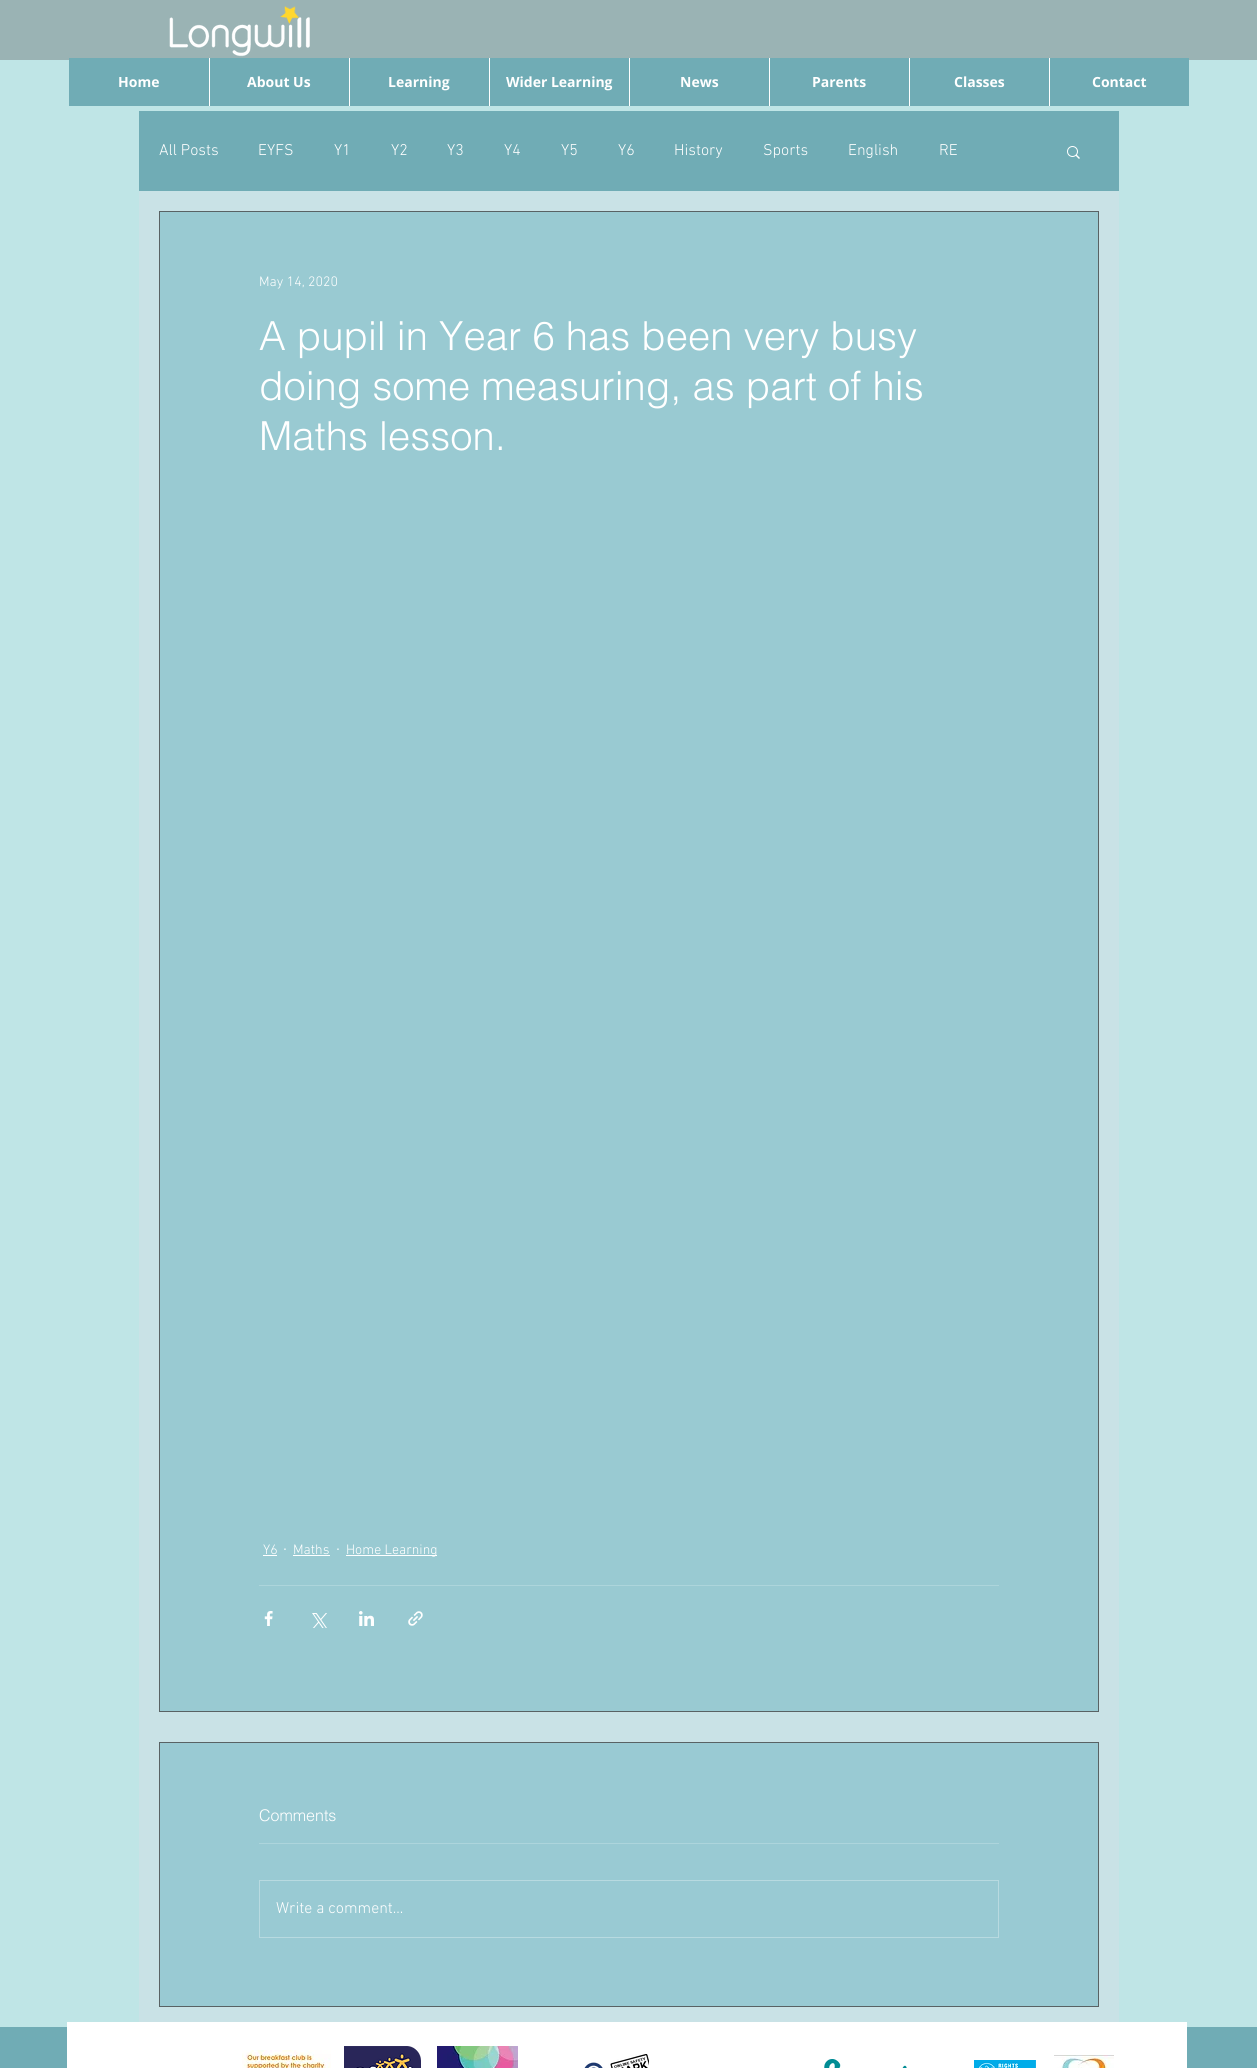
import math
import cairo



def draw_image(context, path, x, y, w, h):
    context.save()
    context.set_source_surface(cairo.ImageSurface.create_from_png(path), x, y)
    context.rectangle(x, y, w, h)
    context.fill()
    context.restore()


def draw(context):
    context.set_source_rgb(191 / 255, 229 / 255, 230 / 255)
    context.paint()
    context.set_source_rgb(154 / 255, 179 / 255, 180 / 255)
    context.rectangle(0, 0, 1257, 60)
    context.fill()
    draw_image(context, "images/1.png", 280, 6, 20, 18)
    draw_image(context, "images/2.png", 169, 17, 141, 40)
    context.set_source_rgb(112 / 255, 172 / 255, 181 / 255)
    context.rectangle(69, 58, 1120, 48)
    context.fill()
    context.set_source_rgb(1, 1, 1)
    context.rectangle(209, 58, 1, 48)
    context.fill()
    context.rectangle(349, 58, 1, 48)
    context.fill()
    context.rectangle(489, 58, 1, 48)
    context.fill()
    context.rectangle(629, 58, 1, 48)
    context.fill()
    context.rectangle(769, 58, 1, 48)
    context.fill()
    context.rectangle(909, 58, 1, 48)
    context.fill()
    context.rectangle(1049, 58, 1, 48)
    context.fill()
    context.set_source_rgb(201 / 255, 226 / 255, 230 / 255)
    context.rectangle(139, 191, 980, 1831)
    context.fill()
    context.set_source_rgb(112 / 255, 172 / 255, 181 / 255)
    context.rectangle(139, 111, 980, 80)
    context.fill()
    draw_image(context, "images/3.png", 1067, 146, 13, 13)
    context.set_source_rgb(153 / 255, 202 / 255, 210 / 255)
    context.rectangle(159.5, 211.5, 939, 1500)
    context.fill_preserve()
    context.set_source_rgb(89 / 255, 98 / 255, 100 / 255)
    context.set_line_width(1)
    context.stroke()
    context.set_source_rgb(1, 1, 1)
    context.rectangle(263, 1555, 14, 1)
    context.fill()
    context.rectangle(293, 1555, 37, 1)
    context.fill()
    context.rectangle(346, 1555, 91, 1)
    context.fill()
    context.set_source_rgb(173 / 255, 213 / 255, 219 / 255)
    context.rectangle(259, 1585, 740, 1)
    context.fill()
    draw_image(context, "images/4.png", 264, 1611, 9, 15)
    draw_image(context, "images/5.png", 312, 1613, 15, 15)
    draw_image(context, "images/6.png", 359, 1611, 15, 15)
    draw_image(context, "images/7.png", 408, 1611, 15, 15)
    context.set_source_rgb(153 / 255, 202 / 255, 211 / 255)
    context.rectangle(159.5, 1742.5, 939, 264)
    context.fill_preserve()
    context.set_source_rgb(89 / 255, 98 / 255, 100 / 255)
    context.stroke()
    context.set_source_rgb(173 / 255, 213 / 255, 220 / 255)
    context.rectangle(259, 1843, 740, 1)
    context.fill()
    context.rectangle(259.5, 1880.5, 739, 57)
    context.set_source_rgb(184 / 255, 218 / 255, 224 / 255)
    context.stroke()
    context.set_source_rgb(112 / 255, 172 / 255, 181 / 255)
    context.rectangle(0, 2027, 1257, 41)
    context.fill()
    context.set_source_rgb(1, 1, 1)
    context.rectangle(67, 2022, 1120, 46)
    context.fill()
    draw_image(context, "images/8.png", 242, 2050, 89, 18)
    draw_image(context, "images/9.png", 344, 2046, 77, 22)
    draw_image(context, "images/10.png", 437, 2046, 81, 22)
    draw_image(context, "images/11.png", 584, 2054, 65, 14)
    draw_image(context, "images/12.png", 824, 2059, 83, 9)
    draw_image(context, "images/13.png", 974, 2060, 62, 8)
    draw_image(context, "images/14.png", 1054, 2055, 60, 13)
    context.select_font_face("Open Sans", cairo.FontSlant.NORMAL, cairo.FontWeight.BOLD)
    context.set_font_size(14)
    context.move_to(118, 87)
    context.show_text("Home")
    context.move_to(247, 87)
    context.show_text("About Us")
    context.move_to(388, 87)
    context.show_text("Learning")
    context.move_to(506, 87)
    context.show_text("Wider Learning")
    context.move_to(680, 87)
    context.show_text("News")
    context.move_to(812, 87)
    context.show_text("Parents")
    context.move_to(954, 87)
    context.show_text("Classes")
    context.move_to(1092, 87)
    context.show_text("Contact")
    context.select_font_face("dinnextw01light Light")
    context.set_font_size(16)
    context.move_to(159, 155)
    context.show_text("All Posts")
    context.move_to(258, 155)
    context.show_text("EYFS")
    context.move_to(334, 155)
    context.show_text("Y1")
    context.move_to(391, 155)
    context.show_text("Y2")
    context.move_to(447, 155)
    context.show_text("Y3")
    context.move_to(504, 155)
    context.show_text("Y4")
    context.move_to(561, 155)
    context.show_text("Y5")
    context.move_to(618, 155)
    context.show_text("Y6")
    context.move_to(674, 155)
    context.show_text("History")
    context.move_to(763, 155)
    context.show_text("Sports")
    context.move_to(848, 155)
    context.show_text("English")
    context.move_to(939, 155)
    context.show_text("RE")
    context.set_font_size(14)
    context.move_to(259, 286)
    context.show_text("May 14, 2020")
    context.select_font_face("helvetica Light")
    context.set_font_size(40)
    context.move_to(259, 350)
    context.show_text("A pupil in Year 6 has been very busy")
    context.move_to(259, 400)
    context.show_text("doing some measuring, as part of his")
    context.move_to(259, 450)
    context.show_text("Maths lesson.")
    context.select_font_face("dinnextw01light Light")
    context.set_font_size(14)
    context.move_to(263, 1554)
    context.show_text("Y6")
    context.set_font_size(18)
    context.move_to(283, 1554)
    context.show_text("·")
    context.set_font_size(14)
    context.move_to(293, 1554)
    context.show_text("Maths")
    context.set_font_size(18)
    context.move_to(336, 1554)
    context.show_text("·")
    context.set_font_size(14)
    context.move_to(346, 1554)
    context.show_text("Home Learning")
    context.select_font_face("helvetica Light")
    context.set_font_size(16)
    context.move_to(259, 1821)
    context.show_text("Comments")
    context.select_font_face("dinnextw01light Light")
    context.move_to(276, 1913)
    context.show_text("Write a comment...")


surface = cairo.ImageSurface(cairo.Format.RGB24, 1257, 2068)
context = cairo.Context(surface)
options = cairo.FontOptions()
options.set_hint_metrics(cairo.HintMetrics.OFF)
options.set_hint_style(cairo.HintStyle.NONE)
context.set_font_options(options)
context.set_miter_limit(4)
draw(context)
surface.write_to_png("out.png")
